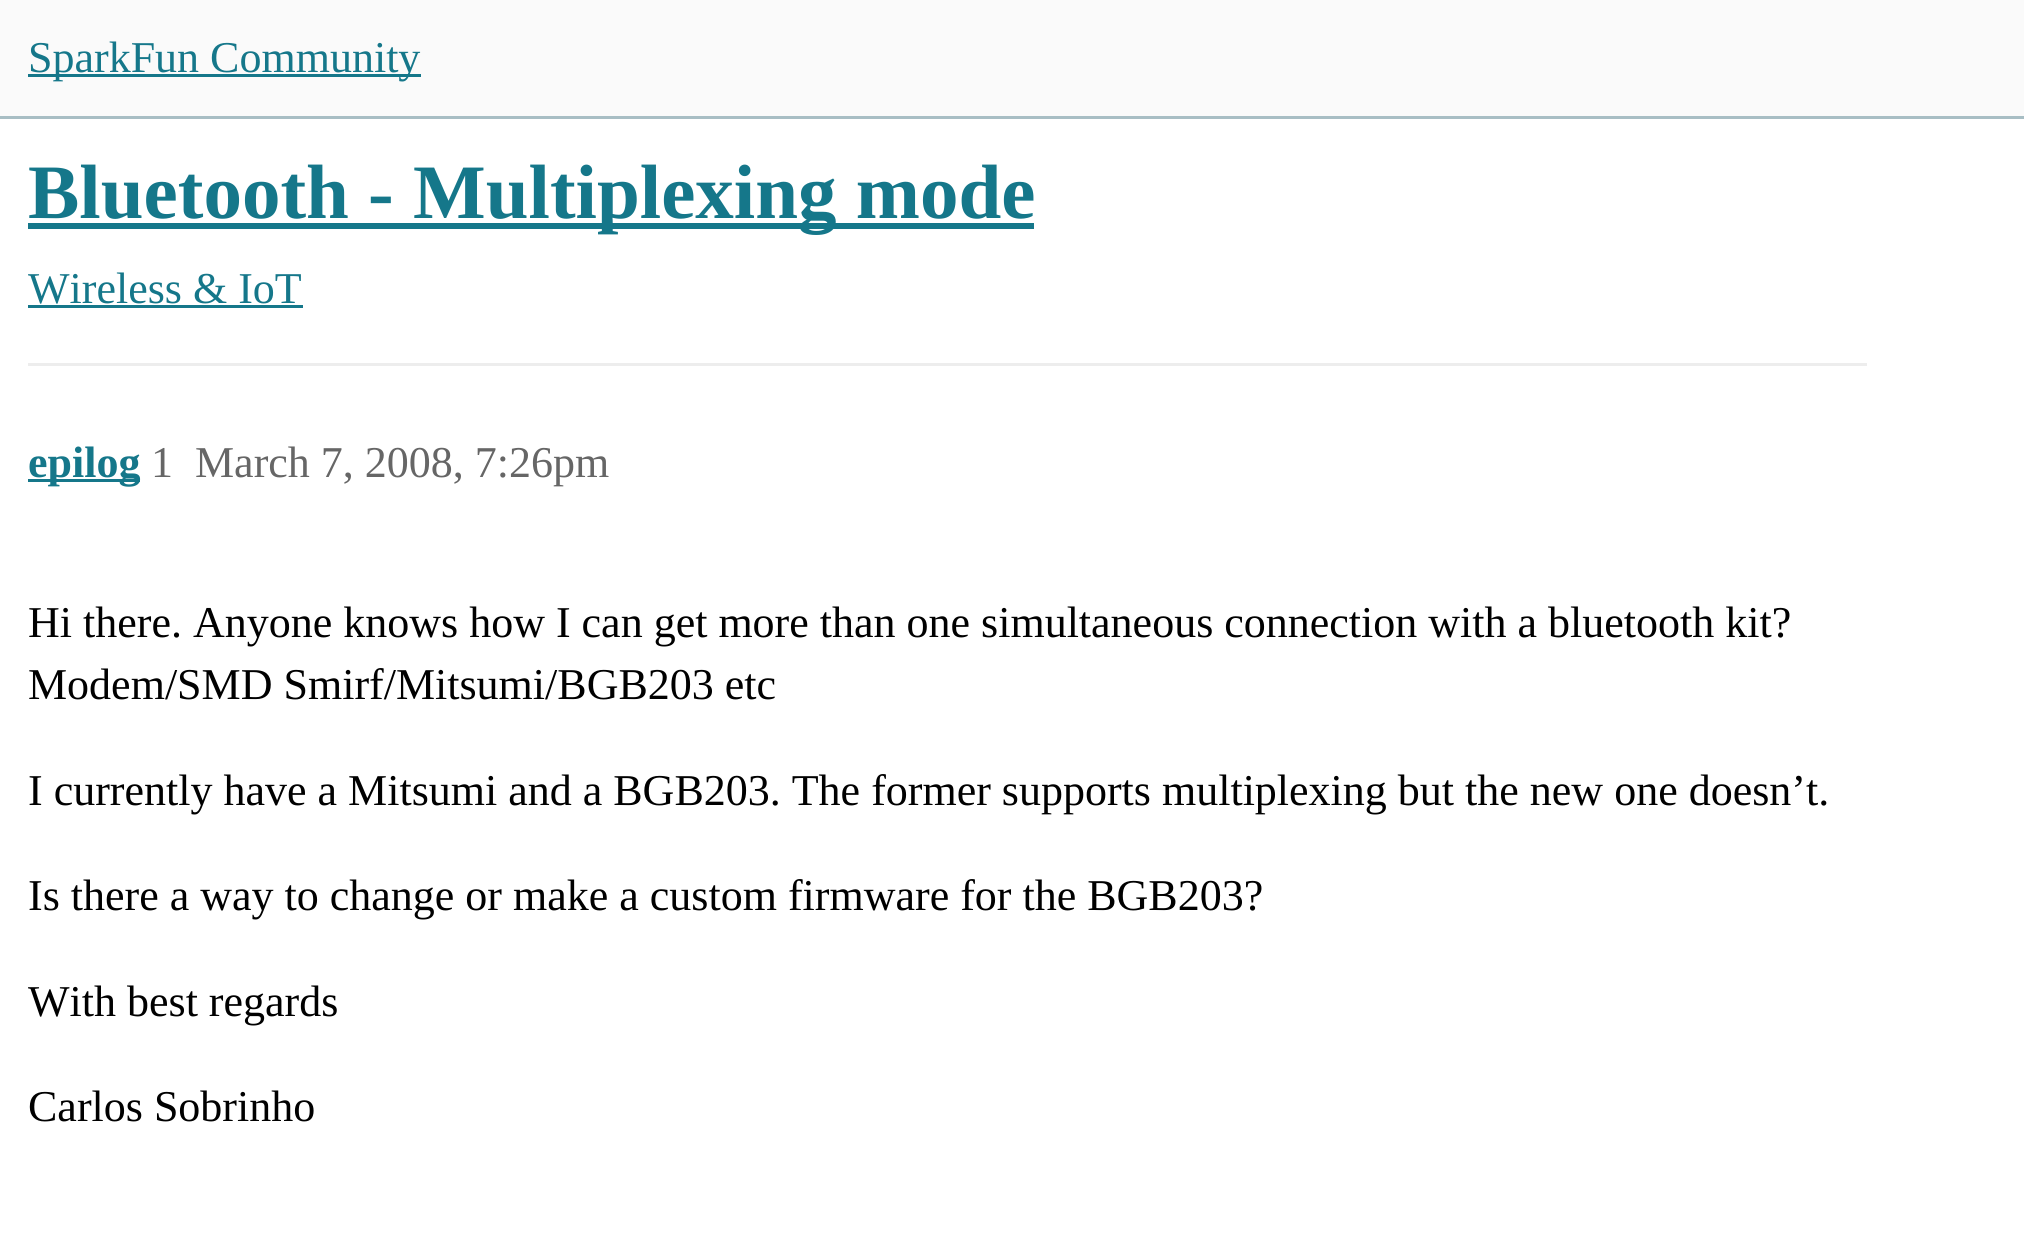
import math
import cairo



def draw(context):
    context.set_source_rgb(1, 1, 1)
    context.paint()
    context.set_source_rgb(250 / 255, 250 / 255, 250 / 255)
    context.rectangle(0, 0, 2024, 116)
    context.fill()
    context.set_source_rgb(168 / 255, 190 / 255, 196 / 255)
    context.rectangle(0, 116, 2024, 3)
    context.fill()
    context.set_source_rgb(21 / 255, 119 / 255, 138 / 255)
    context.rectangle(28, 74, 393, 3)
    context.fill()
    context.rectangle(28, 223, 1006, 6)
    context.fill()
    context.rectangle(28, 305, 275, 3)
    context.fill()
    context.set_source_rgb(237 / 255, 237 / 255, 237 / 255)
    context.rectangle(28, 363, 1839, 3)
    context.fill()
    context.set_source_rgb(21 / 255, 119 / 255, 138 / 255)
    context.rectangle(28, 479, 112, 3)
    context.fill()
    context.select_font_face("Liberation Serif")
    context.set_font_size(44)
    context.move_to(28, 72)
    context.show_text("SparkFun Community")
    context.select_font_face("Liberation Serif", cairo.FontSlant.NORMAL, cairo.FontWeight.BOLD)
    context.set_font_size(77)
    context.move_to(28, 218)
    context.show_text("Bluetooth - Multiplexing mode")
    context.select_font_face("Liberation Serif")
    context.set_font_size(44)
    context.move_to(28, 303)
    context.show_text("Wireless & IoT")
    context.select_font_face("Liberation Serif", cairo.FontSlant.NORMAL, cairo.FontWeight.BOLD)
    context.move_to(28, 477)
    context.show_text("epilog")
    context.select_font_face("Liberation Serif")
    context.set_source_rgb(102 / 255, 102 / 255, 102 / 255)
    context.move_to(151, 477)
    context.show_text("1")
    context.move_to(195, 477)
    context.show_text("March 7, 2008, 7:26pm")
    context.set_source_rgb(0, 0, 0)
    context.move_to(28, 637)
    context.show_text("Hi there. Anyone knows how I can get more than one simultaneous connection with a bluetooth kit?")
    context.move_to(28, 699)
    context.show_text("Modem/SMD Smirf/Mitsumi/BGB203 etc")
    context.move_to(28, 805)
    context.show_text("I currently have a Mitsumi and a BGB203. The former supports multiplexing but the new one doesn’t.")
    context.move_to(28, 910)
    context.show_text("Is there a way to change or make a custom firmware for the BGB203?")
    context.move_to(28, 1016)
    context.show_text("With best regards")
    context.move_to(28, 1121)
    context.show_text("Carlos Sobrinho")


surface = cairo.ImageSurface(cairo.Format.RGB24, 2024, 1236)
context = cairo.Context(surface)
options = cairo.FontOptions()
options.set_hint_metrics(cairo.HintMetrics.OFF)
options.set_hint_style(cairo.HintStyle.NONE)
context.set_font_options(options)
context.set_miter_limit(4)
draw(context)
surface.write_to_png("out.png")
